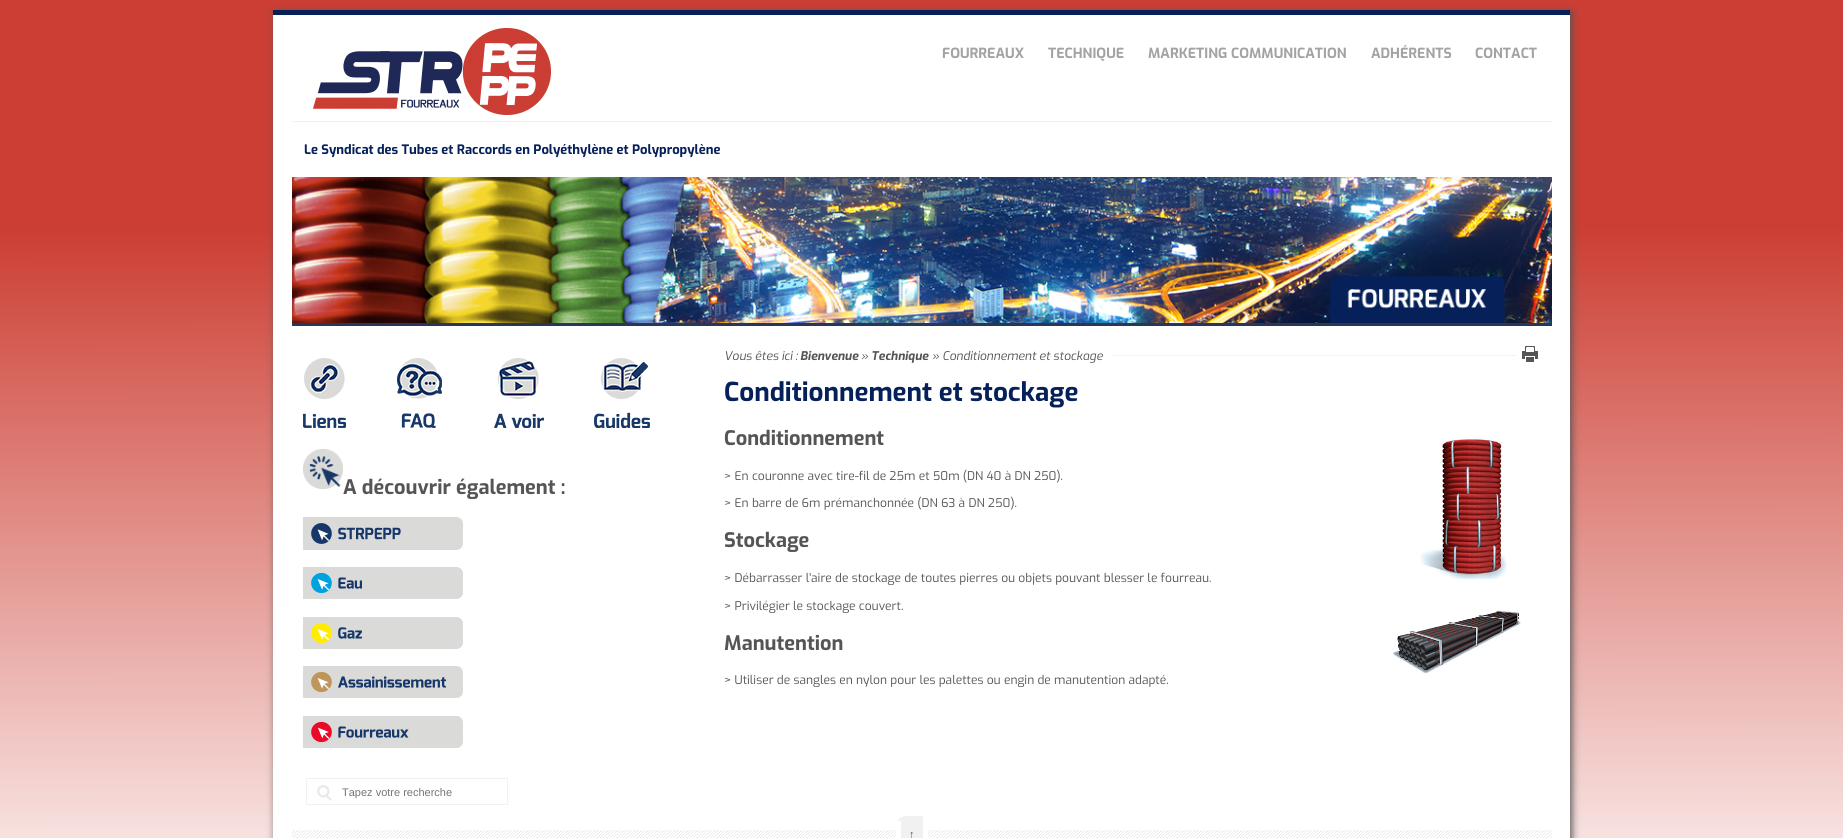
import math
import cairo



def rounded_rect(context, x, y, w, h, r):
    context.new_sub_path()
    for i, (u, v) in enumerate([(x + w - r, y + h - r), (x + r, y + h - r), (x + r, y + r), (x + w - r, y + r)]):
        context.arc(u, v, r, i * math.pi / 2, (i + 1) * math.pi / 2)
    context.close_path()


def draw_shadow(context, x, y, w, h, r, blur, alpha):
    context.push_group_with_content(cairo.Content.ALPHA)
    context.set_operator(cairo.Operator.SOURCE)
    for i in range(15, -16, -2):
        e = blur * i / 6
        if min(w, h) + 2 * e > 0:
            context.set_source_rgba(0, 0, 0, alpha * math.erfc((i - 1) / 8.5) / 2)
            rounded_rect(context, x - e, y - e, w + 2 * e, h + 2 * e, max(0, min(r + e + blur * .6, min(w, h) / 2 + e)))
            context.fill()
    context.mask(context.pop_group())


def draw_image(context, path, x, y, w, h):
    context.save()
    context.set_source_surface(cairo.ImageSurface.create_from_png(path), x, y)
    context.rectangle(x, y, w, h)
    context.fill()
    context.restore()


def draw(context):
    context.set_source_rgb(1, 1, 1)
    context.paint()
    gradient = cairo.LinearGradient(921, 0, 922, 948)
    gradient.add_color_stop_rgba(0, 204 / 255, 62 / 255, 51 / 255, 1)
    gradient.add_color_stop_rgba(0.24, 204 / 255, 62 / 255, 51 / 255, 1)
    gradient.add_color_stop_rgba(1, 1, 1, 1, 1)
    context.set_source(gradient)
    context.rectangle(0, 0, 1843, 838)
    context.fill()
    context.set_source_rgb(85 / 255, 85 / 255, 85 / 255)
    draw_shadow(context, 275, 12, 1297, 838, 0, 4, 1)
    context.set_source_rgb(1, 1, 1)
    context.rectangle(273, 15, 1297, 823)
    context.fill()
    context.set_source_rgb(6 / 255, 32 / 255, 90 / 255)
    context.rectangle(273, 10, 1297, 5)
    context.fill()
    context.set_source_rgb(241 / 255, 241 / 255, 241 / 255)
    context.rectangle(292, 121, 1260, 1)
    context.fill()
    draw_image(context, "images/1.png", 313, 28, 238, 87)
    context.set_source_rgb(39 / 255, 54 / 255, 89 / 255)
    context.rectangle(292, 177, 1260, 149)
    context.fill()
    draw_image(context, "images/2.png", 292, 177, 1260, 146)
    draw_image(context, "images/3.png", 303, 358, 43, 70)
    draw_image(context, "images/4.png", 397, 358, 45, 70)
    draw_image(context, "images/5.png", 494, 358, 50, 70)
    draw_image(context, "images/6.png", 594, 358, 56, 70)
    draw_image(context, "images/7.png", 303, 449, 40, 40)
    draw_image(context, "images/8.png", 303, 517, 160, 33)
    draw_image(context, "images/9.png", 303, 567, 160, 32)
    draw_image(context, "images/10.png", 303, 617, 160, 32)
    draw_image(context, "images/11.png", 303, 666, 160, 32)
    draw_image(context, "images/12.png", 303, 716, 160, 32)
    draw_image(context, "images/13.png", 317, 785, 15, 16)
    context.rectangle(306.5, 778.5, 201, 26)
    context.set_source_rgb(241 / 255, 241 / 255, 241 / 255)
    context.set_line_width(1)
    context.stroke()
    draw_image(context, "images/14.png", 1111, 355, 405, 1)
    draw_image(context, "images/15.png", 1522, 346, 16, 16)
    draw_image(context, "images/16.png", 1420, 438, 87, 141)
    draw_image(context, "images/17.png", 1392, 610, 129, 64)
    draw_image(context, "images/18.png", 292, 830, 1260, 8)
    context.new_path()
    context.move_to(906, 816)
    context.line_to(928, 816)
    context.line_to(928, 838)
    context.curve_to(928, 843.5, 923.5, 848, 918, 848)
    context.line_to(896, 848)
    context.line_to(896, 826)
    context.curve_to(896, 820.5, 900.5, 816, 906, 816)
    context.close_path()
    context.fill()
    context.set_source_rgb(1, 1, 1)
    context.rectangle(923, 816, 5, 22)
    context.fill()
    context.rectangle(896, 821, 5, 17)
    context.fill()
    context.select_font_face("Exo", cairo.FontSlant.NORMAL, cairo.FontWeight.BOLD)
    context.set_font_size(14)
    context.set_source_rgb(163 / 255, 163 / 255, 163 / 255)
    context.move_to(942, 58)
    context.show_text("FOURREAUX")
    context.move_to(1048, 58)
    context.show_text("TECHNIQUE")
    context.move_to(1148, 58)
    context.show_text("MARKETING COMMUNICATION")
    context.move_to(1371, 58)
    context.show_text("ADHÉRENTS")
    context.move_to(1475, 58)
    context.show_text("CONTACT")
    context.set_font_size(13)
    context.set_source_rgb(6 / 255, 32 / 255, 90 / 255)
    context.move_to(304, 154)
    context.show_text("Le Syndicat des Tubes et Raccords en Polyéthylène et Polypropylène")
    context.set_font_size(20)
    context.set_source_rgb(85 / 255, 85 / 255, 85 / 255)
    context.move_to(343, 494)
    context.show_text("A découvrir également :")
    context.select_font_face("Liberation Sans")
    context.set_font_size(11)
    context.set_source_rgb(117 / 255, 117 / 255, 117 / 255)
    context.move_to(342, 796)
    context.show_text("Tapez votre recherche")
    context.select_font_face("Exo", cairo.FontSlant.ITALIC)
    context.set_font_size(12)
    context.set_source_rgb(85 / 255, 85 / 255, 85 / 255)
    context.move_to(724, 360)
    context.show_text("Vous êtes ici :")
    context.select_font_face("Exo", cairo.FontSlant.ITALIC, cairo.FontWeight.BOLD)
    context.move_to(800, 360)
    context.show_text("Bienvenue")
    context.select_font_face("Exo", cairo.FontSlant.ITALIC)
    context.move_to(861, 360)
    context.show_text("»")
    context.select_font_face("Exo", cairo.FontSlant.ITALIC, cairo.FontWeight.BOLD)
    context.move_to(871, 360)
    context.show_text("Technique")
    context.select_font_face("Exo", cairo.FontSlant.ITALIC)
    context.move_to(932, 360)
    context.show_text("» Conditionnement et stockage")
    context.select_font_face("Exo", cairo.FontSlant.NORMAL, cairo.FontWeight.BOLD)
    context.set_font_size(26)
    context.set_source_rgb(6 / 255, 32 / 255, 90 / 255)
    context.move_to(724, 401)
    context.show_text("Conditionnement et stockage")
    context.set_font_size(20)
    context.set_source_rgb(85 / 255, 85 / 255, 85 / 255)
    context.move_to(724, 445)
    context.show_text("Conditionnement")
    context.select_font_face("Exo")
    context.set_font_size(12)
    context.move_to(724, 480)
    context.show_text("> En couronne avec tire-fil de 25m et 50m (DN 40 à DN 250).")
    context.move_to(724, 507)
    context.show_text("> En barre de 6m prémanchonnée (DN 63 à DN 250).")
    context.select_font_face("Exo", cairo.FontSlant.NORMAL, cairo.FontWeight.BOLD)
    context.set_font_size(20)
    context.move_to(724, 547)
    context.show_text("Stockage")
    context.select_font_face("Exo")
    context.set_font_size(12)
    context.move_to(724, 582)
    context.show_text("> Débarrasser l'aire de stockage de toutes pierres ou objets pouvant blesser le fourreau.")
    context.move_to(724, 610)
    context.show_text("> Privilégier le stockage couvert.")
    context.select_font_face("Exo", cairo.FontSlant.NORMAL, cairo.FontWeight.BOLD)
    context.set_font_size(20)
    context.move_to(724, 650)
    context.show_text("Manutention")
    context.select_font_face("Exo")
    context.set_font_size(12)
    context.move_to(724, 684)
    context.show_text("> Utiliser de sangles en nylon pour les palettes ou engin de manutention adapté.")
    context.select_font_face("Liberation Serif", cairo.FontSlant.ITALIC)
    context.set_font_size(11)
    context.move_to(909, 838)
    context.show_text("↑")


surface = cairo.ImageSurface(cairo.Format.RGB24, 1843, 838)
context = cairo.Context(surface)
options = cairo.FontOptions()
options.set_hint_metrics(cairo.HintMetrics.OFF)
options.set_hint_style(cairo.HintStyle.NONE)
context.set_font_options(options)
context.set_miter_limit(4)
draw(context)
surface.write_to_png("out.png")
